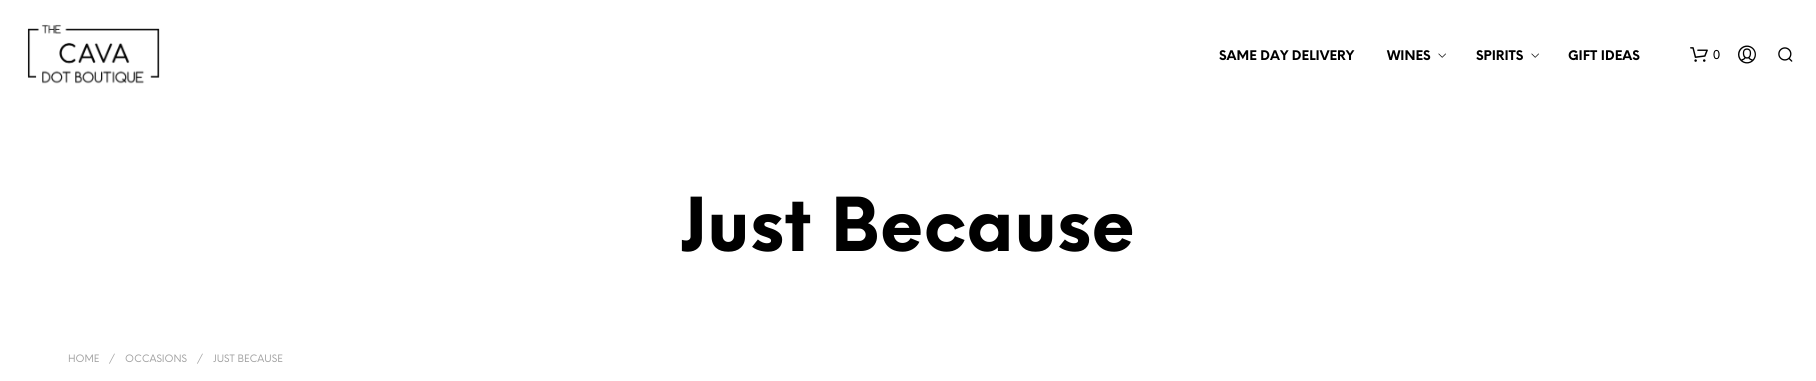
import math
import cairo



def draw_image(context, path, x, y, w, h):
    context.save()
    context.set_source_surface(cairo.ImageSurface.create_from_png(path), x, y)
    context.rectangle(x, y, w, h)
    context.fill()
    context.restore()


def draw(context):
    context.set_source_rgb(1, 1, 1)
    context.paint()
    draw_image(context, "images/1.png", 27, 24, 133, 60)
    draw_image(context, "images/2.png", 1438, 53, 8, 5)
    draw_image(context, "images/2.png", 1531, 53, 8, 5)
    draw_image(context, "images/3.png", 1690, 47, 18, 15)
    draw_image(context, "images/4.png", 1738, 45, 18, 19)
    draw_image(context, "images/5.png", 1778, 47, 15, 15)
    context.select_font_face("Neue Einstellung", cairo.FontSlant.NORMAL, cairo.FontWeight.BOLD)
    context.set_font_size(13)
    context.set_source_rgb(0, 0, 0)
    context.move_to(1219, 60)
    context.show_text("SAME DAY DELIVERY")
    context.move_to(1387, 60)
    context.show_text("WINES")
    context.move_to(1476, 60)
    context.show_text("SPIRITS")
    context.move_to(1568, 60)
    context.show_text("GIFT IDEAS")
    context.select_font_face("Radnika")
    context.move_to(1713, 59)
    context.show_text("0")
    context.select_font_face("Neue Einstellung", cairo.FontSlant.NORMAL, cairo.FontWeight.BOLD)
    context.set_font_size(72.5)
    context.move_to(680, 251)
    context.show_text("Just Because")
    context.select_font_face("Neue Einstellung")
    context.set_font_size(10)
    context.set_source_rgb(161 / 255, 161 / 255, 161 / 255)
    context.move_to(68, 362)
    context.show_text("HOME")
    context.move_to(109, 362)
    context.show_text("/")
    context.move_to(125, 362)
    context.show_text("OCCASIONS")
    context.move_to(197, 362)
    context.show_text("/")
    context.move_to(213, 362)
    context.show_text("JUST BECAUSE")


surface = cairo.ImageSurface(cairo.Format.RGB24, 1816, 381)
context = cairo.Context(surface)
options = cairo.FontOptions()
options.set_hint_metrics(cairo.HintMetrics.OFF)
options.set_hint_style(cairo.HintStyle.NONE)
context.set_font_options(options)
context.set_miter_limit(4)
draw(context)
surface.write_to_png("out.png")
